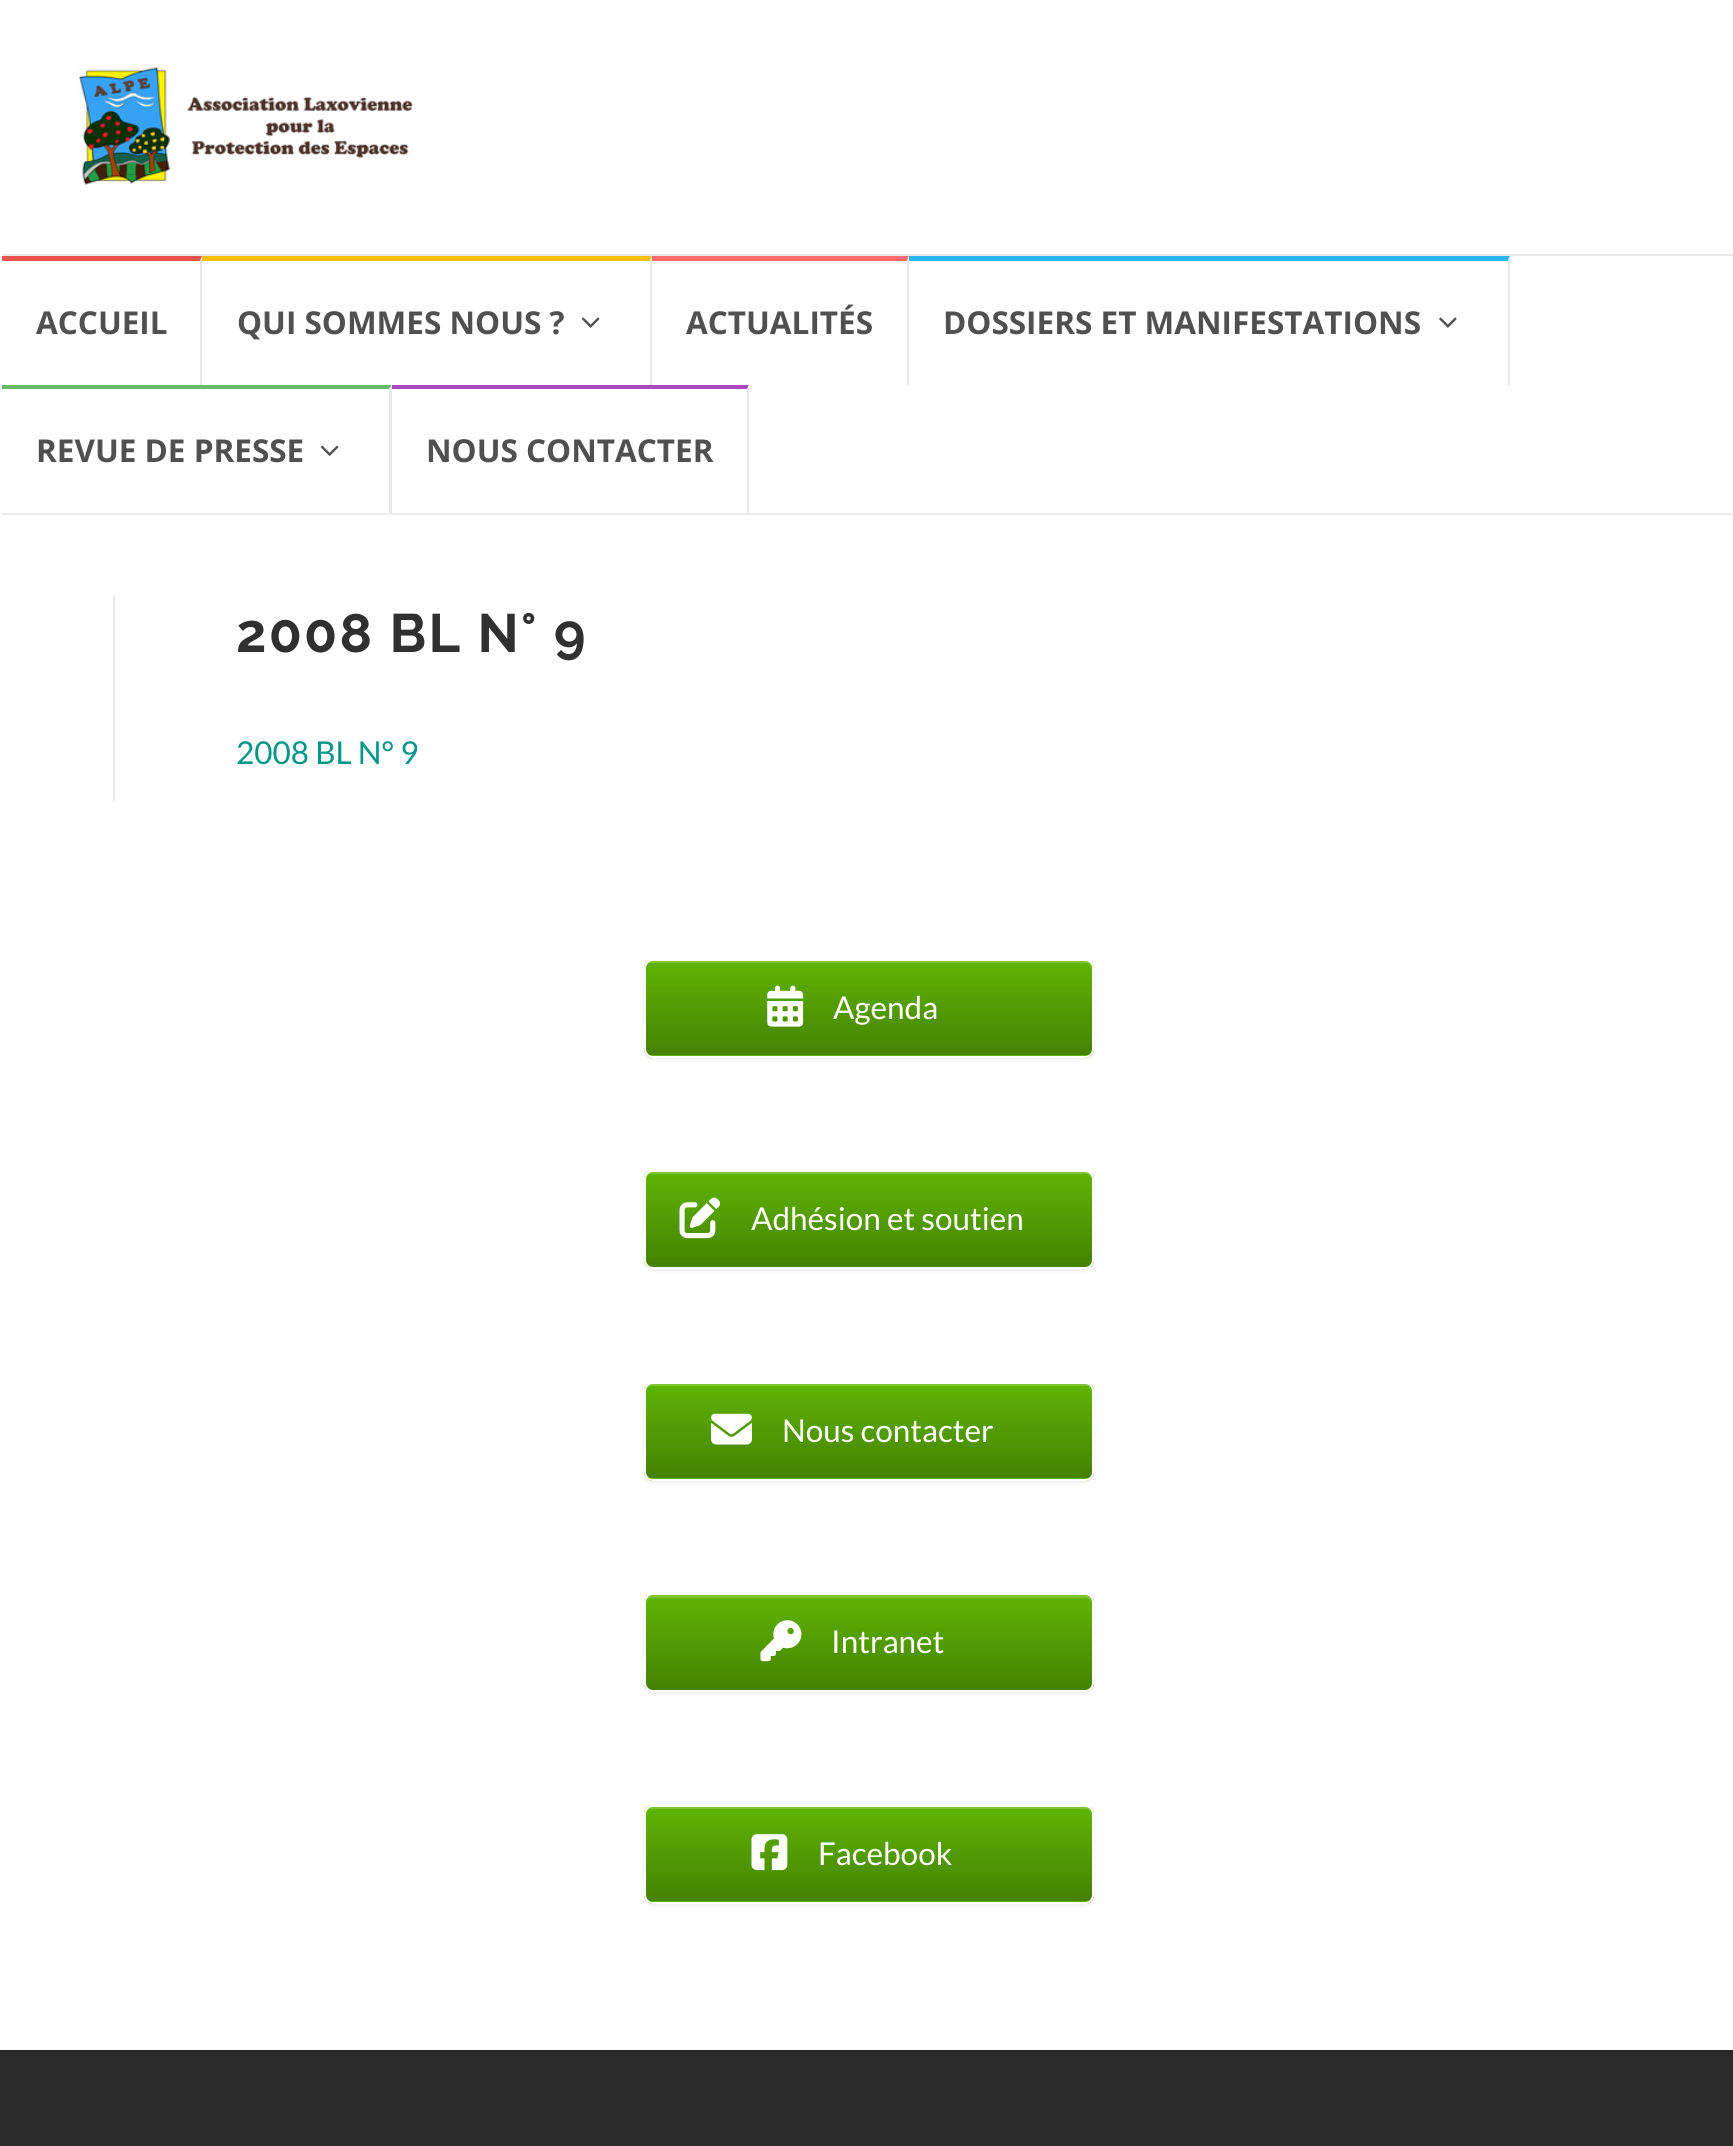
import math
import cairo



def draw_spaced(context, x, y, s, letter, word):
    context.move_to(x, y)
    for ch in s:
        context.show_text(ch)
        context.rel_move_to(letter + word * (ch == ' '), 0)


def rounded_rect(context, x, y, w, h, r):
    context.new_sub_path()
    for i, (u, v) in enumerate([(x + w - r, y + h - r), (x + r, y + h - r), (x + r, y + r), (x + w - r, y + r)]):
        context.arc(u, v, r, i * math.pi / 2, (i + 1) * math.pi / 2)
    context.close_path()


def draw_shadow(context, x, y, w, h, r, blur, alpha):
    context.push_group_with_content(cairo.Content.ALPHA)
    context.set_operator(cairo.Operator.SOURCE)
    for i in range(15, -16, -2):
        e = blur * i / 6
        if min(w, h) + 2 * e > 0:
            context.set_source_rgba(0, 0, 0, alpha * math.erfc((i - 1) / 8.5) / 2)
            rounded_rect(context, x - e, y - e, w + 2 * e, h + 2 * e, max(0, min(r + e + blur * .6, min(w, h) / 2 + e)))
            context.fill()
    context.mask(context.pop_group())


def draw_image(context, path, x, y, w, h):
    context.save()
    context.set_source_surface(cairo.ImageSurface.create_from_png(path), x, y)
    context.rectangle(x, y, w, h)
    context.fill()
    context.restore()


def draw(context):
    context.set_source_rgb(1, 1, 1)
    context.paint()
    draw_image(context, "images/1.png", 79, 67, 334, 118)
    context.set_source_rgb(234 / 255, 234 / 255, 234 / 255)
    context.rectangle(2, 254, 1731, 2)
    context.fill()
    context.rectangle(2, 513, 1731, 2)
    context.fill()
    context.set_source_rgb(239 / 255, 83 / 255, 80 / 255)
    context.new_path()
    context.move_to(2, 256)
    context.line_to(202, 256)
    context.line_to(200, 261)
    context.line_to(2, 261)
    context.close_path()
    context.fill()
    context.set_source_rgb(234 / 255, 234 / 255, 234 / 255)
    context.new_path()
    context.move_to(202, 256)
    context.line_to(202, 385)
    context.line_to(200, 385)
    context.line_to(200, 261)
    context.close_path()
    context.fill()
    context.set_source_rgb(1, 193 / 255, 7 / 255)
    context.new_path()
    context.move_to(202, 256)
    context.line_to(652, 256)
    context.line_to(650, 261)
    context.line_to(202, 261)
    context.close_path()
    context.fill()
    context.set_source_rgb(234 / 255, 234 / 255, 234 / 255)
    context.new_path()
    context.move_to(652, 256)
    context.line_to(652, 385)
    context.line_to(650, 385)
    context.line_to(650, 261)
    context.close_path()
    context.fill()
    draw_image(context, "images/2.png", 581, 317, 19, 11)
    context.set_source_rgb(1, 107 / 255, 107 / 255)
    context.new_path()
    context.move_to(652, 256)
    context.line_to(909, 256)
    context.line_to(907, 261)
    context.line_to(652, 261)
    context.close_path()
    context.fill()
    context.set_source_rgb(234 / 255, 234 / 255, 234 / 255)
    context.new_path()
    context.move_to(909, 256)
    context.line_to(909, 385)
    context.line_to(907, 385)
    context.line_to(907, 261)
    context.close_path()
    context.fill()
    context.set_source_rgb(41 / 255, 182 / 255, 246 / 255)
    context.new_path()
    context.move_to(909, 256)
    context.line_to(1510, 256)
    context.line_to(1508, 261)
    context.line_to(909, 261)
    context.close_path()
    context.fill()
    context.set_source_rgb(234 / 255, 234 / 255, 234 / 255)
    context.new_path()
    context.move_to(1510, 256)
    context.line_to(1510, 385)
    context.line_to(1508, 385)
    context.line_to(1508, 261)
    context.close_path()
    context.fill()
    draw_image(context, "images/3.png", 1439, 317, 18, 11)
    context.set_source_rgb(102 / 255, 187 / 255, 106 / 255)
    context.new_path()
    context.move_to(2, 385)
    context.line_to(392, 385)
    context.line_to(389, 389)
    context.line_to(2, 389)
    context.close_path()
    context.fill()
    context.set_source_rgb(234 / 255, 234 / 255, 234 / 255)
    context.new_path()
    context.move_to(392, 385)
    context.line_to(392, 513)
    context.line_to(389, 513)
    context.line_to(389, 389)
    context.close_path()
    context.fill()
    draw_image(context, "images/4.png", 320, 445, 19, 11)
    context.set_source_rgb(171 / 255, 71 / 255, 188 / 255)
    context.new_path()
    context.move_to(392, 385)
    context.line_to(749, 385)
    context.line_to(747, 389)
    context.line_to(392, 389)
    context.close_path()
    context.fill()
    context.set_source_rgb(234 / 255, 234 / 255, 234 / 255)
    context.new_path()
    context.move_to(749, 385)
    context.line_to(749, 513)
    context.line_to(747, 513)
    context.line_to(747, 389)
    context.close_path()
    context.fill()
    context.rectangle(113, 596, 2, 205)
    context.fill()
    context.set_source_rgb(0, 0, 0)
    draw_shadow(context, 644, 961, 450, 99, 9, 2, 0.07)
    context.save()
    rounded_rect(context, 644, 959, 450, 99, 9)
    context.clip()
    gradient = cairo.LinearGradient(646, 1055, 646, 961)
    gradient.add_color_stop_rgba(0, 69 / 255, 130 / 255, 3 / 255, 1)
    gradient.add_color_stop_rgba(1, 95 / 255, 180 / 255, 4 / 255, 1)
    context.set_source(gradient)
    context.rectangle(644, 961, 450, 94)
    context.fill()
    gradient = cairo.LinearGradient(646, 1150, 646, 1055)
    gradient.add_color_stop_rgba(0, 69 / 255, 130 / 255, 3 / 255, 1)
    gradient.add_color_stop_rgba(1, 95 / 255, 180 / 255, 4 / 255, 1)
    context.set_source(gradient)
    context.rectangle(644, 1055, 450, 3)
    context.fill()
    context.restore()
    context.set_source_rgb(127 / 255, 195 / 255, 54 / 255)
    context.new_path()
    context.move_to(651, 963)
    context.line_to(1086, 963)
    context.curve_to(1089, 963, 1091, 966, 1091, 969)
    context.line_to(1091, 967)
    context.curve_to(1091, 964, 1088, 961, 1085, 961)
    context.line_to(652, 961)
    context.curve_to(649, 961, 646, 964, 646, 967)
    context.line_to(646, 969)
    context.curve_to(646, 966, 648, 963, 651, 963)
    context.close_path()
    context.fill()
    rounded_rect(context, 645, 960, 448, 97, 8)
    context.set_source_rgb(1, 1, 1)
    context.stroke()
    draw_image(context, "images/5.png", 767, 985, 37, 42)
    context.set_source_rgb(0, 0, 0)
    draw_shadow(context, 644, 1172, 450, 99, 9, 2, 0.07)
    context.save()
    rounded_rect(context, 644, 1170, 450, 99, 9)
    context.clip()
    gradient = cairo.LinearGradient(646, 1267, 646, 1172)
    gradient.add_color_stop_rgba(0, 69 / 255, 130 / 255, 3 / 255, 1)
    gradient.add_color_stop_rgba(1, 95 / 255, 180 / 255, 4 / 255, 1)
    context.set_source(gradient)
    context.rectangle(644, 1172, 450, 95)
    context.fill()
    context.restore()
    context.set_source_rgb(127 / 255, 195 / 255, 54 / 255)
    context.new_path()
    context.move_to(651, 1174)
    context.line_to(1086, 1174)
    context.curve_to(1089, 1174, 1091, 1177, 1091, 1180)
    context.line_to(1091, 1178)
    context.curve_to(1091, 1175, 1088, 1172, 1085, 1172)
    context.line_to(652, 1172)
    context.curve_to(649, 1172, 646, 1175, 646, 1178)
    context.line_to(646, 1180)
    context.curve_to(646, 1177, 648, 1174, 651, 1174)
    context.close_path()
    context.fill()
    rounded_rect(context, 645, 1171, 448, 97, 8)
    context.set_source_rgb(1, 1, 1)
    context.stroke()
    draw_image(context, "images/6.png", 679, 1197, 42, 42)
    context.set_source_rgb(0, 0, 0)
    draw_shadow(context, 644, 1384, 450, 99, 9, 2, 0.07)
    context.save()
    rounded_rect(context, 644, 1382, 450, 99, 9)
    context.clip()
    gradient = cairo.LinearGradient(646, 1478, 646, 1384)
    gradient.add_color_stop_rgba(0, 69 / 255, 130 / 255, 3 / 255, 1)
    gradient.add_color_stop_rgba(1, 95 / 255, 180 / 255, 4 / 255, 1)
    context.set_source(gradient)
    context.rectangle(644, 1384, 450, 94)
    context.fill()
    gradient = cairo.LinearGradient(646, 1573, 646, 1478)
    gradient.add_color_stop_rgba(0, 69 / 255, 130 / 255, 3 / 255, 1)
    gradient.add_color_stop_rgba(1, 95 / 255, 180 / 255, 4 / 255, 1)
    context.set_source(gradient)
    context.rectangle(644, 1478, 450, 3)
    context.fill()
    context.restore()
    context.set_source_rgb(127 / 255, 195 / 255, 54 / 255)
    context.new_path()
    context.move_to(651, 1386)
    context.line_to(1086, 1386)
    context.curve_to(1089, 1386, 1091, 1389, 1091, 1392)
    context.line_to(1091, 1390)
    context.curve_to(1091, 1387, 1088, 1384, 1085, 1384)
    context.line_to(652, 1384)
    context.curve_to(649, 1384, 646, 1387, 646, 1390)
    context.line_to(646, 1392)
    context.curve_to(646, 1389, 648, 1386, 651, 1386)
    context.close_path()
    context.fill()
    rounded_rect(context, 645, 1383, 448, 97, 8)
    context.set_source_rgb(1, 1, 1)
    context.stroke()
    draw_image(context, "images/7.png", 711, 1413, 41, 32)
    context.set_source_rgb(0, 0, 0)
    draw_shadow(context, 644, 1595, 450, 99, 9, 2, 0.07)
    context.save()
    rounded_rect(context, 644, 1593, 450, 99, 9)
    context.clip()
    gradient = cairo.LinearGradient(646, 1690, 646, 1595)
    gradient.add_color_stop_rgba(0, 69 / 255, 130 / 255, 3 / 255, 1)
    gradient.add_color_stop_rgba(1, 95 / 255, 180 / 255, 4 / 255, 1)
    context.set_source(gradient)
    context.rectangle(644, 1595, 450, 95)
    context.fill()
    context.restore()
    context.set_source_rgba(1, 1, 1, 0.2)
    context.new_path()
    context.move_to(651, 1598)
    context.line_to(1086, 1598)
    context.curve_to(1089, 1598, 1091, 1600, 1091, 1603)
    context.line_to(1091, 1601)
    context.curve_to(1091, 1598, 1088, 1595, 1085, 1595)
    context.line_to(652, 1595)
    context.curve_to(649, 1595, 646, 1598, 646, 1601)
    context.line_to(646, 1603)
    context.curve_to(646, 1600, 648, 1598, 651, 1598)
    context.close_path()
    context.fill()
    rounded_rect(context, 645, 1594, 448, 97, 8)
    context.set_source_rgb(1, 1, 1)
    context.stroke()
    draw_image(context, "images/8.png", 760, 1620, 42, 42)
    context.set_source_rgb(0, 0, 0)
    draw_shadow(context, 644, 1807, 450, 99, 9, 2, 0.07)
    context.save()
    rounded_rect(context, 644, 1805, 450, 99, 9)
    context.clip()
    gradient = cairo.LinearGradient(646, 1901, 646, 1807)
    gradient.add_color_stop_rgba(0, 69 / 255, 130 / 255, 3 / 255, 1)
    gradient.add_color_stop_rgba(1, 95 / 255, 180 / 255, 4 / 255, 1)
    context.set_source(gradient)
    context.rectangle(644, 1807, 450, 94)
    context.fill()
    gradient = cairo.LinearGradient(646, 1996, 646, 1901)
    gradient.add_color_stop_rgba(0, 69 / 255, 130 / 255, 3 / 255, 1)
    gradient.add_color_stop_rgba(1, 95 / 255, 180 / 255, 4 / 255, 1)
    context.set_source(gradient)
    context.rectangle(644, 1901, 450, 3)
    context.fill()
    context.restore()
    context.set_source_rgb(127 / 255, 195 / 255, 54 / 255)
    context.new_path()
    context.move_to(651, 1809)
    context.line_to(1086, 1809)
    context.curve_to(1089, 1809, 1091, 1812, 1091, 1815)
    context.line_to(1091, 1813)
    context.curve_to(1091, 1810, 1088, 1807, 1085, 1807)
    context.line_to(652, 1807)
    context.curve_to(649, 1807, 646, 1810, 646, 1813)
    context.line_to(646, 1815)
    context.curve_to(646, 1812, 648, 1809, 651, 1809)
    context.close_path()
    context.fill()
    rounded_rect(context, 645, 1806, 448, 97, 8)
    context.set_source_rgb(1, 1, 1)
    context.stroke()
    draw_image(context, "images/9.png", 751, 1834, 37, 37)
    context.set_source_rgb(42 / 255, 42 / 255, 42 / 255)
    context.rectangle(0, 2052, 1733, 94)
    context.fill()
    context.set_source_rgb(38 / 255, 38 / 255, 38 / 255)
    context.rectangle(0, 2050, 1733, 2)
    context.fill()
    context.select_font_face("Open Sans", cairo.FontSlant.NORMAL, cairo.FontWeight.BOLD)
    context.set_font_size(31.5)
    context.set_source_rgb(80 / 255, 80 / 255, 80 / 255)
    context.move_to(36, 334)
    context.show_text("ACCUEIL")
    context.move_to(237, 334)
    context.show_text("QUI SOMMES NOUS ?")
    context.move_to(686, 334)
    context.show_text("ACTUALITÉS")
    context.move_to(943, 334)
    context.show_text("DOSSIERS ET MANIFESTATIONS")
    context.move_to(36, 462)
    context.show_text("REVUE DE PRESSE")
    context.move_to(426, 462)
    context.show_text("NOUS CONTACTER")
    context.select_font_face("Raleway", cairo.FontSlant.NORMAL, cairo.FontWeight.BOLD)
    context.set_font_size(54)
    context.set_source_rgb(48 / 255, 48 / 255, 48 / 255)
    draw_spaced(context, 236, 652, "2008 BL N° 9", 2.25, 0)
    context.select_font_face("Lato")
    context.set_font_size(31.5)
    context.set_source_rgb(0, 150 / 255, 136 / 255)
    context.move_to(236, 764)
    context.show_text("2008 BL N° 9")
    context.set_source_rgb(1, 1, 1)
    context.move_to(833, 1019)
    context.show_text("Agenda")
    context.move_to(751, 1230)
    context.show_text("Adhésion et soutien")
    context.move_to(782, 1442)
    context.show_text("Nous contacter")
    context.move_to(831, 1653)
    context.show_text("Intranet")
    context.move_to(818, 1865)
    context.show_text("Facebook")


surface = cairo.ImageSurface(cairo.Format.RGB24, 1733, 2146)
context = cairo.Context(surface)
options = cairo.FontOptions()
options.set_hint_metrics(cairo.HintMetrics.OFF)
options.set_hint_style(cairo.HintStyle.NONE)
context.set_font_options(options)
context.set_miter_limit(4)
draw(context)
surface.write_to_png("out.png")
